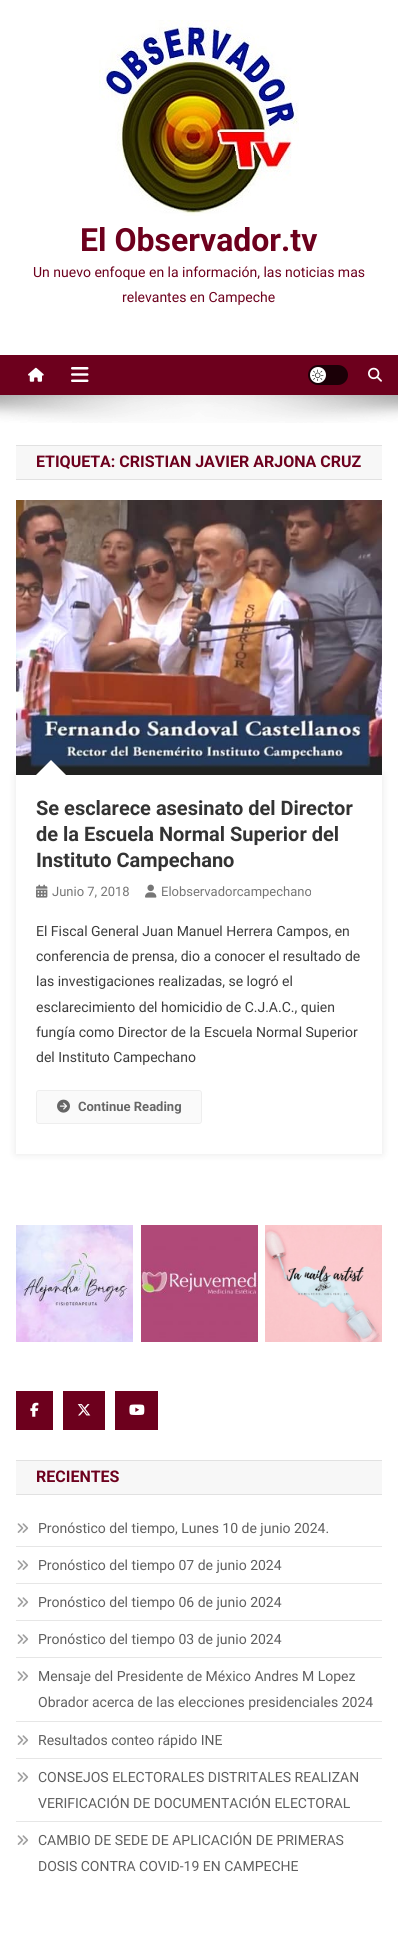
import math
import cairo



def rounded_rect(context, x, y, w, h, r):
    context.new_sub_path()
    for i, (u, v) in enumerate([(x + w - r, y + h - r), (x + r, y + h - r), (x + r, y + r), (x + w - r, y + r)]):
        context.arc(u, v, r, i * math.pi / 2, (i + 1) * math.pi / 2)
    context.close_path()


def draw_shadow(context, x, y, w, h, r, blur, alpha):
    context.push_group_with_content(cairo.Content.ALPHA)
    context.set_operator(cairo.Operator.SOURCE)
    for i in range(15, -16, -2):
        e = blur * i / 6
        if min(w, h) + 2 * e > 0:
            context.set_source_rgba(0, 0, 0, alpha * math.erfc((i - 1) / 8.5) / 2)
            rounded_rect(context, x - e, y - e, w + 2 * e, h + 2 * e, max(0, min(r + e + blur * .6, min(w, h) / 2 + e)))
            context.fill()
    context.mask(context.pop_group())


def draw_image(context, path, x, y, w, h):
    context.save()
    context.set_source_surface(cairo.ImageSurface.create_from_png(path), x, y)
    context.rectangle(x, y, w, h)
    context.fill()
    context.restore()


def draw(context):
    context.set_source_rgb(1, 1, 1)
    context.paint()
    draw_image(context, "images/1.png", 99, 20, 200, 196)
    context.set_source_rgb(109 / 255, 0, 29 / 255)
    context.rectangle(0, 355, 398, 40)
    context.fill()
    draw_image(context, "images/2.png", 28, 367, 16, 15)
    draw_image(context, "images/3.png", 71, 367, 18, 15)
    context.set_source_rgb(27 / 255, 0, 7 / 255)
    rounded_rect(context, 308, 365, 40, 20, 10)
    context.fill()
    context.set_source_rgb(1, 1, 1)
    context.arc(318, 375, 8, 0, 2 * math.pi)
    context.fill()
    draw_image(context, "images/4.png", 312, 369, 12, 12)
    draw_image(context, "images/5.png", 368, 367, 14, 15)
    draw_image(context, "images/6.png", 0, 395, 398, 28)
    context.set_source_rgb(247 / 255, 247 / 255, 247 / 255)
    context.rectangle(16, 446, 366, 33)
    context.fill()
    context.set_source_rgb(225 / 255, 225 / 255, 225 / 255)
    context.rectangle(16, 445, 366, 1)
    context.fill()
    context.rectangle(16, 479, 366, 1)
    context.fill()
    draw_image(context, "images/7.png", 16, 500, 366, 275)
    context.save()
    context.set_fill_rule(cairo.FillRule.EVEN_ODD)
    context.new_path()
    context.move_to(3, 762)
    context.line_to(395, 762)
    context.line_to(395, 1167)
    context.line_to(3, 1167)
    context.close_path()
    context.move_to(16, 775)
    context.line_to(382, 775)
    context.line_to(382, 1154)
    context.line_to(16, 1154)
    context.close_path()
    context.clip()
    context.set_source_rgb(0, 0, 0)
    draw_shadow(context, 16, 775, 366, 379, 0, 4, 0.1)
    context.restore()
    context.set_source_rgb(1, 1, 1)
    context.new_path()
    context.move_to(66, 775)
    context.line_to(36, 775)
    context.line_to(51, 760)
    context.close_path()
    context.fill()
    draw_image(context, "images/8.png", 36, 884, 12, 14)
    draw_image(context, "images/9.png", 145, 884, 12, 14)
    context.set_source_rgb(250 / 255, 250 / 255, 250 / 255)
    rounded_rect(context, 36.5, 1090.5, 165, 33, 2.5)
    context.fill_preserve()
    context.set_source_rgb(238 / 255, 238 / 255, 238 / 255)
    context.set_line_width(1)
    context.stroke()
    draw_image(context, "images/10.png", 57, 1099, 13, 14)
    draw_image(context, "images/11.png", 16, 1225, 117, 117)
    draw_image(context, "images/12.png", 141, 1225, 117, 117)
    draw_image(context, "images/13.png", 265, 1225, 117, 117)
    context.set_source_rgb(109 / 255, 0, 29 / 255)
    context.rectangle(16, 1391, 37, 39)
    context.fill()
    draw_image(context, "images/14.png", 30, 1402, 9, 15)
    context.rectangle(63, 1391, 42, 39)
    context.fill()
    draw_image(context, "images/15.png", 77, 1404, 14, 12)
    context.rectangle(115, 1391, 43, 39)
    context.fill()
    draw_image(context, "images/16.png", 129, 1404, 16, 11)
    context.set_source_rgb(247 / 255, 247 / 255, 247 / 255)
    context.rectangle(16, 1461, 366, 33)
    context.fill()
    context.set_source_rgb(225 / 255, 225 / 255, 225 / 255)
    context.rectangle(16, 1460, 366, 1)
    context.fill()
    context.rectangle(16, 1494, 366, 1)
    context.fill()
    context.set_source_rgb(230 / 255, 230 / 255, 230 / 255)
    context.rectangle(16, 1546, 366, 1)
    context.fill()
    draw_image(context, "images/17.png", 17, 1523, 12, 10)
    context.rectangle(16, 1583, 366, 1)
    context.fill()
    draw_image(context, "images/17.png", 17, 1560, 12, 10)
    context.rectangle(16, 1620, 366, 1)
    context.fill()
    draw_image(context, "images/17.png", 17, 1597, 12, 10)
    context.rectangle(16, 1657, 366, 1)
    context.fill()
    draw_image(context, "images/17.png", 17, 1634, 12, 10)
    context.rectangle(16, 1721, 366, 1)
    context.fill()
    draw_image(context, "images/17.png", 17, 1671, 12, 10)
    context.rectangle(16, 1758, 366, 1)
    context.fill()
    draw_image(context, "images/17.png", 17, 1735, 12, 10)
    context.rectangle(16, 1821, 366, 1)
    context.fill()
    draw_image(context, "images/17.png", 17, 1772, 12, 10)
    draw_image(context, "images/17.png", 17, 1835, 12, 10)
    context.select_font_face("Roboto", cairo.FontSlant.NORMAL, cairo.FontWeight.BOLD)
    context.set_font_size(32)
    context.set_source_rgb(109 / 255, 0, 29 / 255)
    context.move_to(80, 251)
    context.show_text("El Observador.tv")
    context.select_font_face("Roboto")
    context.set_font_size(14)
    context.move_to(33, 277)
    context.show_text("Un nuevo enfoque en la información, las noticias mas")
    context.move_to(122, 302)
    context.show_text("relevantes en Campeche")
    context.select_font_face("Roboto", cairo.FontSlant.NORMAL, cairo.FontWeight.BOLD)
    context.set_font_size(16)
    context.move_to(36, 467)
    context.show_text("ETIQUETA: CRISTIAN JAVIER ARJONA CRUZ")
    context.set_font_size(20)
    context.set_source_rgb(51 / 255, 51 / 255, 51 / 255)
    context.move_to(36, 815)
    context.show_text("Se esclarece asesinato del Director")
    context.move_to(36, 841)
    context.show_text("de la Escuela Normal Superior del")
    context.move_to(36, 867)
    context.show_text("Instituto Campechano")
    context.select_font_face("Roboto")
    context.set_font_size(13)
    context.set_source_rgb(118 / 255, 118 / 255, 118 / 255)
    context.move_to(52, 896)
    context.show_text("Junio 7, 2018")
    context.move_to(161, 896)
    context.show_text("Elobservadorcampechano")
    context.set_font_size(14)
    context.set_source_rgb(61 / 255, 61 / 255, 61 / 255)
    context.move_to(36, 936)
    context.show_text("El Fiscal General Juan Manuel Herrera Campos, en")
    context.move_to(36, 961)
    context.show_text("conferencia de prensa, dio a conocer el resultado de")
    context.move_to(36, 986)
    context.show_text("las investigaciones realizadas, se logró el")
    context.move_to(36, 1012)
    context.show_text("esclarecimiento del homicidio de C.J.A.C., quien")
    context.move_to(36, 1037)
    context.show_text("fungía como Director de la Escuela Normal Superior")
    context.move_to(36, 1062)
    context.show_text("del Instituto Campechano")
    context.select_font_face("Roboto", cairo.FontSlant.NORMAL, cairo.FontWeight.BOLD)
    context.set_font_size(13)
    context.set_source_rgb(102 / 255, 102 / 255, 102 / 255)
    context.move_to(78, 1111)
    context.show_text("Continue Reading")
    context.set_font_size(16)
    context.set_source_rgb(109 / 255, 0, 29 / 255)
    context.move_to(36, 1482)
    context.show_text("RECIENTES")
    context.select_font_face("Roboto")
    context.set_font_size(14)
    context.set_source_rgb(95 / 255, 95 / 255, 95 / 255)
    context.move_to(38, 1533)
    context.show_text("Pronóstico del tiempo, Lunes 10 de junio 2024.")
    context.move_to(38, 1570)
    context.show_text("Pronóstico del tiempo 07 de junio 2024")
    context.move_to(38, 1607)
    context.show_text("Pronóstico del tiempo 06 de junio 2024")
    context.move_to(38, 1644)
    context.show_text("Pronóstico del tiempo 03 de junio 2024")
    context.move_to(38, 1681)
    context.show_text("Mensaje del Presidente de México Andres M Lopez")
    context.move_to(38, 1707)
    context.show_text("Obrador acerca de las elecciones presidenciales 2024")
    context.move_to(38, 1745)
    context.show_text("Resultados conteo rápido INE")
    context.move_to(38, 1782)
    context.show_text("CONSEJOS ELECTORALES DISTRITALES REALIZAN")
    context.move_to(38, 1808)
    context.show_text("VERIFICACIÓN DE DOCUMENTACIÓN ELECTORAL")
    context.move_to(38, 1845)
    context.show_text("CAMBIO DE SEDE DE APLICACIÓN DE PRIMERAS")
    context.move_to(38, 1871)
    context.show_text("DOSIS CONTRA COVID-19 EN CAMPECHE")


surface = cairo.ImageSurface(cairo.Format.RGB24, 398, 1934)
context = cairo.Context(surface)
options = cairo.FontOptions()
options.set_hint_metrics(cairo.HintMetrics.OFF)
options.set_hint_style(cairo.HintStyle.NONE)
context.set_font_options(options)
context.set_miter_limit(4)
draw(context)
surface.write_to_png("out.png")
